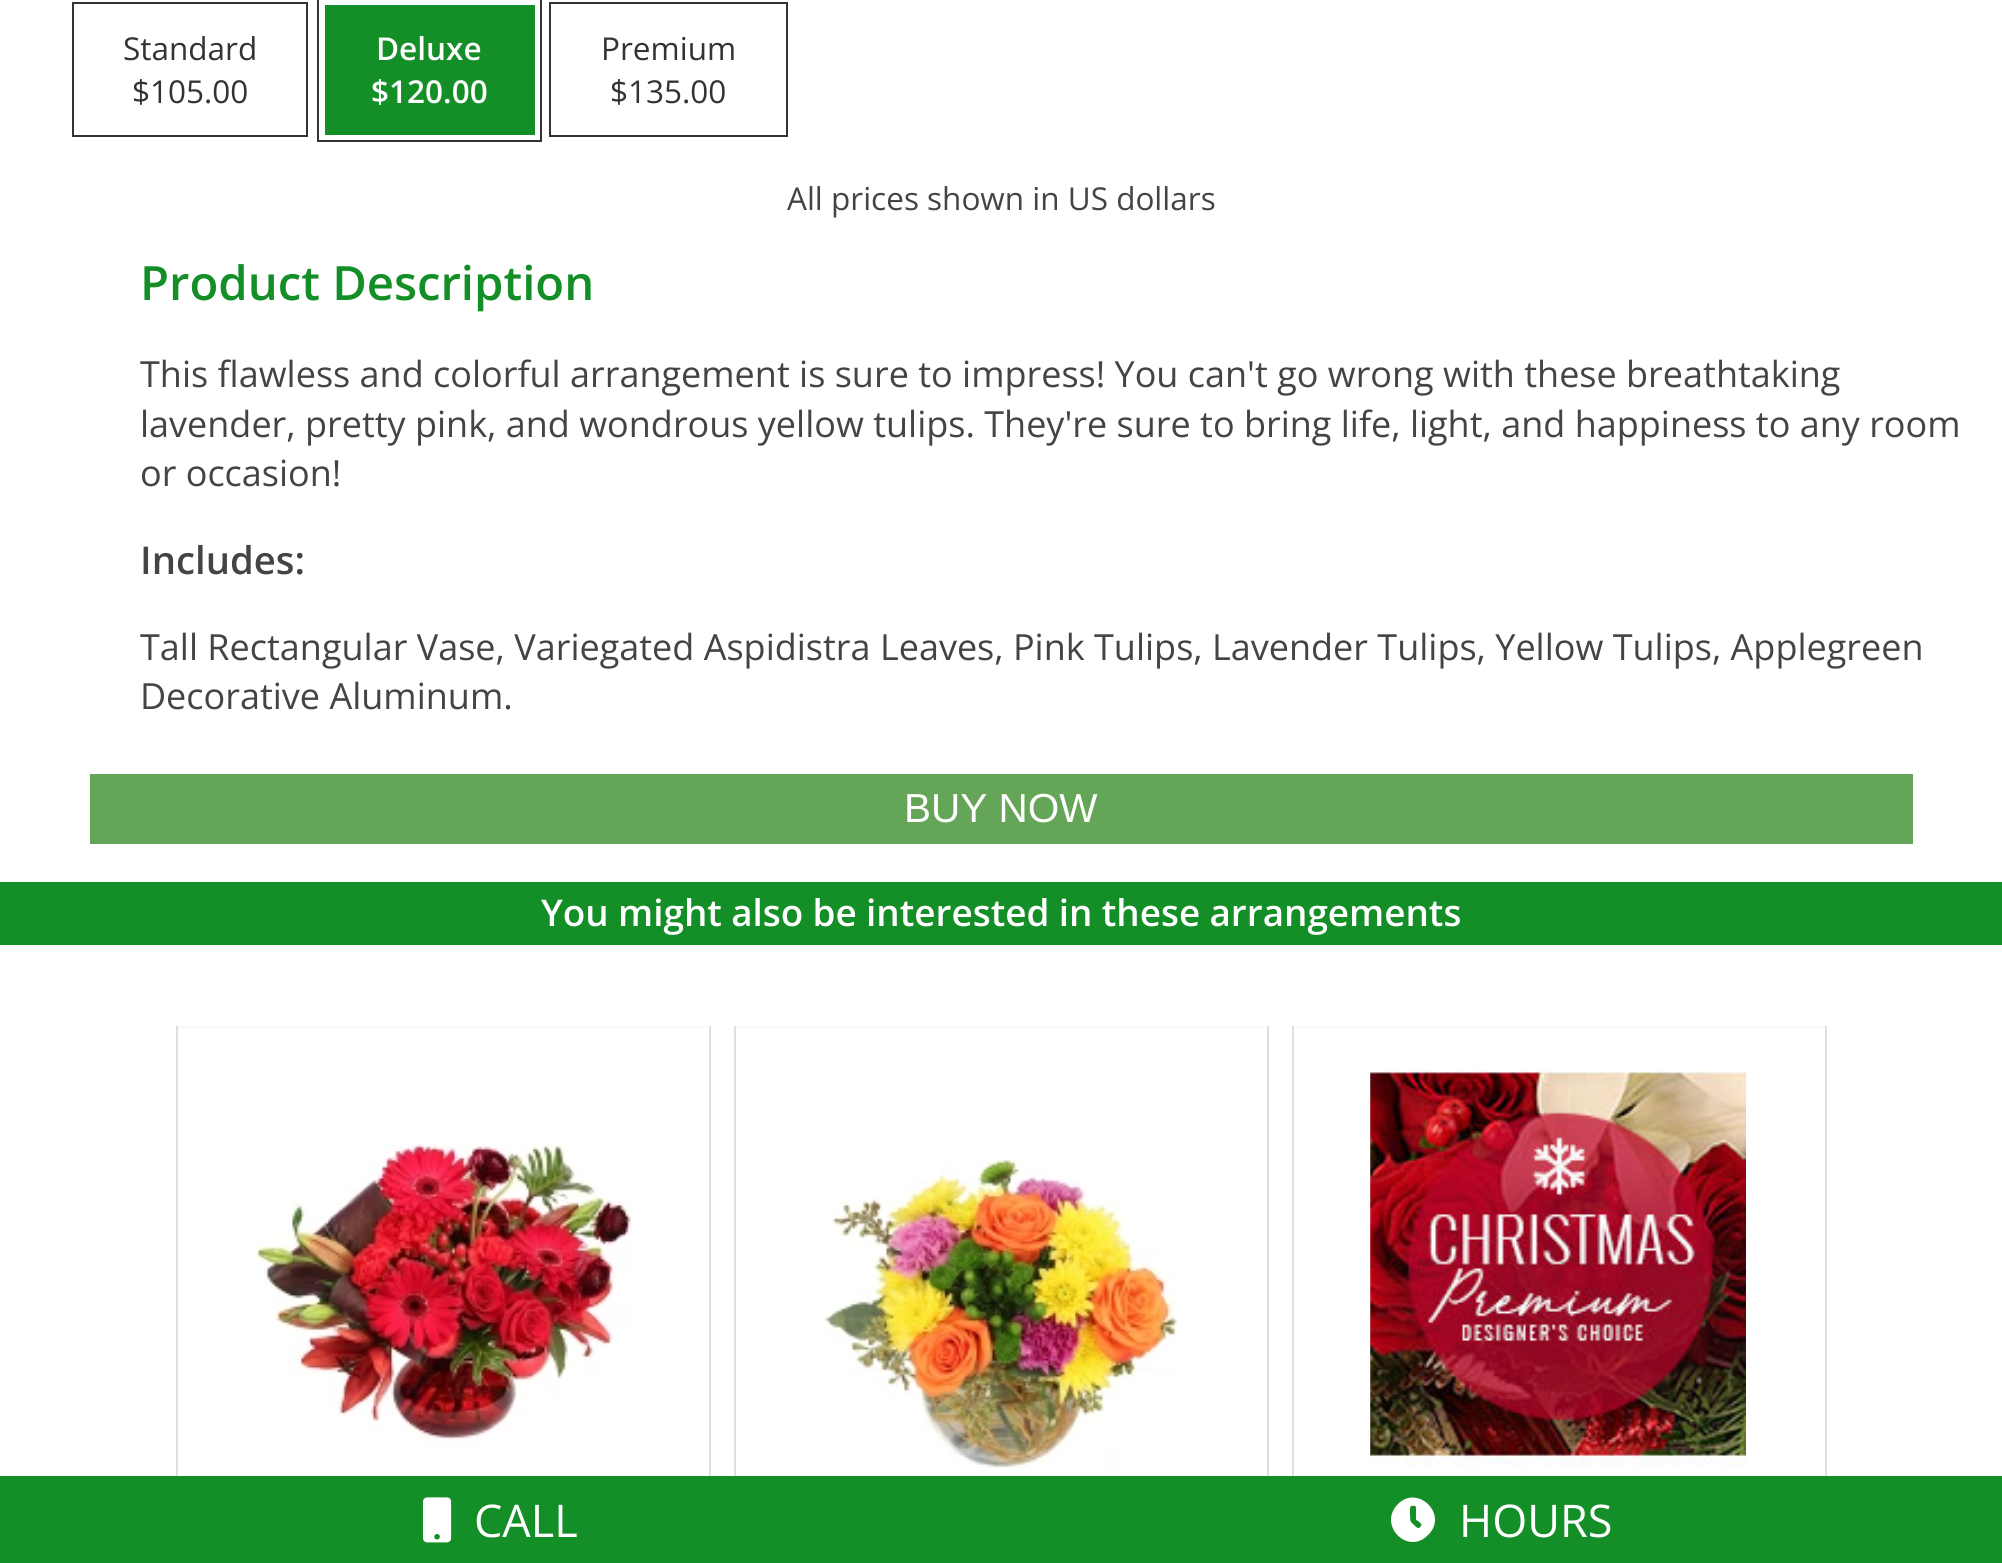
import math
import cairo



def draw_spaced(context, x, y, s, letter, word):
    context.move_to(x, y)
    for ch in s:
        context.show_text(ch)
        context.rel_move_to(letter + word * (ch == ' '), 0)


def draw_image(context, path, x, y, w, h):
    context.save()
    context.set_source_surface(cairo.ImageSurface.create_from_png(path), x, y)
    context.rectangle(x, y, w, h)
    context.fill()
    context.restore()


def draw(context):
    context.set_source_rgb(1, 1, 1)
    context.paint()
    context.rectangle(73, 3, 234, 133)
    context.set_source_rgb(51 / 255, 51 / 255, 51 / 255)
    context.stroke()
    context.rectangle(318, -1, 223, 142)
    context.stroke()
    context.set_source_rgb(20 / 255, 143 / 255, 39 / 255)
    context.rectangle(325, 5, 210, 130)
    context.fill()
    context.rectangle(550, 3, 237, 133)
    context.set_source_rgb(51 / 255, 51 / 255, 51 / 255)
    context.stroke()
    context.set_source_rgb(101 / 255, 165 / 255, 87 / 255)
    context.rectangle(90, 774, 1823, 70)
    context.fill()
    context.set_source_rgb(20 / 255, 143 / 255, 39 / 255)
    context.rectangle(0, 882, 2002, 63)
    context.fill()
    context.set_source_rgb(249 / 255, 249 / 255, 249 / 255)
    context.rectangle(176, 1026, 535, 2)
    context.fill()
    context.set_source_rgb(226 / 255, 222 / 255, 221 / 255)
    context.rectangle(709, 1026, 2, 450)
    context.fill()
    context.rectangle(176, 1026, 2, 450)
    context.fill()
    draw_image(context, "images/1.png", 256, 1143, 376, 307)
    context.set_source_rgb(249 / 255, 249 / 255, 249 / 255)
    context.rectangle(734, 1026, 535, 2)
    context.fill()
    context.set_source_rgb(226 / 255, 222 / 255, 221 / 255)
    context.rectangle(1267, 1026, 2, 450)
    context.fill()
    context.rectangle(734, 1026, 2, 450)
    context.fill()
    draw_image(context, "images/2.png", 818, 1158, 360, 311)
    context.set_source_rgb(249 / 255, 249 / 255, 249 / 255)
    context.rectangle(1292, 1026, 535, 2)
    context.fill()
    context.set_source_rgb(226 / 255, 222 / 255, 221 / 255)
    context.rectangle(1825, 1026, 2, 450)
    context.fill()
    context.rectangle(1292, 1026, 2, 450)
    context.fill()
    draw_image(context, "images/3.png", 1370, 1070, 376, 397)
    context.set_source_rgb(20 / 255, 143 / 255, 39 / 255)
    context.rectangle(0, 1476, 2002, 87)
    context.fill()
    draw_image(context, "images/4.png", 423, 1497, 29, 46)
    context.set_source_rgb(1, 1, 1)
    context.new_path()
    context.move_to(1398, 1504)
    context.curve_to(1418, 1484, 1449, 1515, 1428, 1535)
    context.curve_to(1408, 1556, 1377, 1525, 1398, 1504)
    context.close_path()
    context.move_to(1421, 1526)
    context.curve_to(1423, 1524, 1417, 1520, 1416, 1520)
    context.line_to(1416, 1507)
    context.curve_to(1415, 1505, 1412, 1506, 1411, 1506)
    context.curve_to(1409, 1507, 1410, 1521, 1411, 1522)
    context.line_to(1415, 1526)
    context.curve_to(1419, 1529, 1418, 1529, 1421, 1526)
    context.close_path()
    context.fill()
    context.select_font_face("Open Sans")
    context.set_font_size(31.5)
    context.set_source_rgb(51 / 255, 51 / 255, 51 / 255)
    context.move_to(123, 60)
    context.show_text("Standard")
    context.move_to(132, 103)
    context.show_text("$105.00")
    context.select_font_face("Open Sans SemiBold")
    context.set_source_rgb(1, 1, 1)
    context.move_to(376, 60)
    context.show_text("Deluxe")
    context.move_to(371, 103)
    context.show_text("$120.00")
    context.select_font_face("Open Sans")
    context.set_source_rgb(51 / 255, 51 / 255, 51 / 255)
    context.move_to(601, 60)
    context.show_text("Premium")
    context.move_to(610, 103)
    context.show_text("$135.00")
    context.set_source_rgb(68 / 255, 68 / 255, 68 / 255)
    context.move_to(787, 210)
    context.show_text("All prices shown in US dollars")
    context.select_font_face("Open Sans SemiBold")
    context.set_font_size(47.25)
    context.set_source_rgb(20 / 255, 143 / 255, 39 / 255)
    context.move_to(140, 300)
    context.show_text("Product Description")
    context.select_font_face("Open Sans")
    context.set_font_size(36)
    context.set_source_rgb(68 / 255, 68 / 255, 68 / 255)
    context.move_to(140, 387)
    context.show_text("This flawless and colorful arrangement is sure to impress! You can't go wrong with these breathtaking")
    context.move_to(140, 437)
    context.show_text("lavender, pretty pink, and wondrous yellow tulips. They're sure to bring life, light, and happiness to any room")
    context.move_to(140, 486)
    context.show_text("or occasion!")
    context.select_font_face("Open Sans SemiBold")
    context.set_font_size(38.25)
    context.move_to(140, 574)
    context.show_text("Includes:")
    context.select_font_face("Open Sans")
    context.set_font_size(36)
    context.move_to(140, 660)
    context.show_text("Tall Rectangular Vase, Variegated Aspidistra Leaves, Pink Tulips, Lavender Tulips, Yellow Tulips, Applegreen")
    context.move_to(140, 709)
    context.show_text("Decorative Aluminum.")
    context.select_font_face("Liberation Sans")
    context.set_font_size(40.5)
    context.set_source_rgb(1, 1, 1)
    context.move_to(904, 822)
    context.show_text("BUY NOW")
    context.select_font_face("Open Sans SemiBold")
    context.set_font_size(36.85)
    draw_spaced(context, 541, 926, "You might also be interested in these arrangements", 0, -0.25)
    context.select_font_face("Open Sans")
    context.set_font_size(45)
    context.move_to(474, 1537)
    context.show_text("CALL")
    context.move_to(1459, 1537)
    context.show_text("HOURS")


surface = cairo.ImageSurface(cairo.Format.RGB24, 2002, 1563)
context = cairo.Context(surface)
options = cairo.FontOptions()
options.set_hint_metrics(cairo.HintMetrics.OFF)
options.set_hint_style(cairo.HintStyle.NONE)
context.set_font_options(options)
context.set_miter_limit(4)
draw(context)
surface.write_to_png("out.png")
